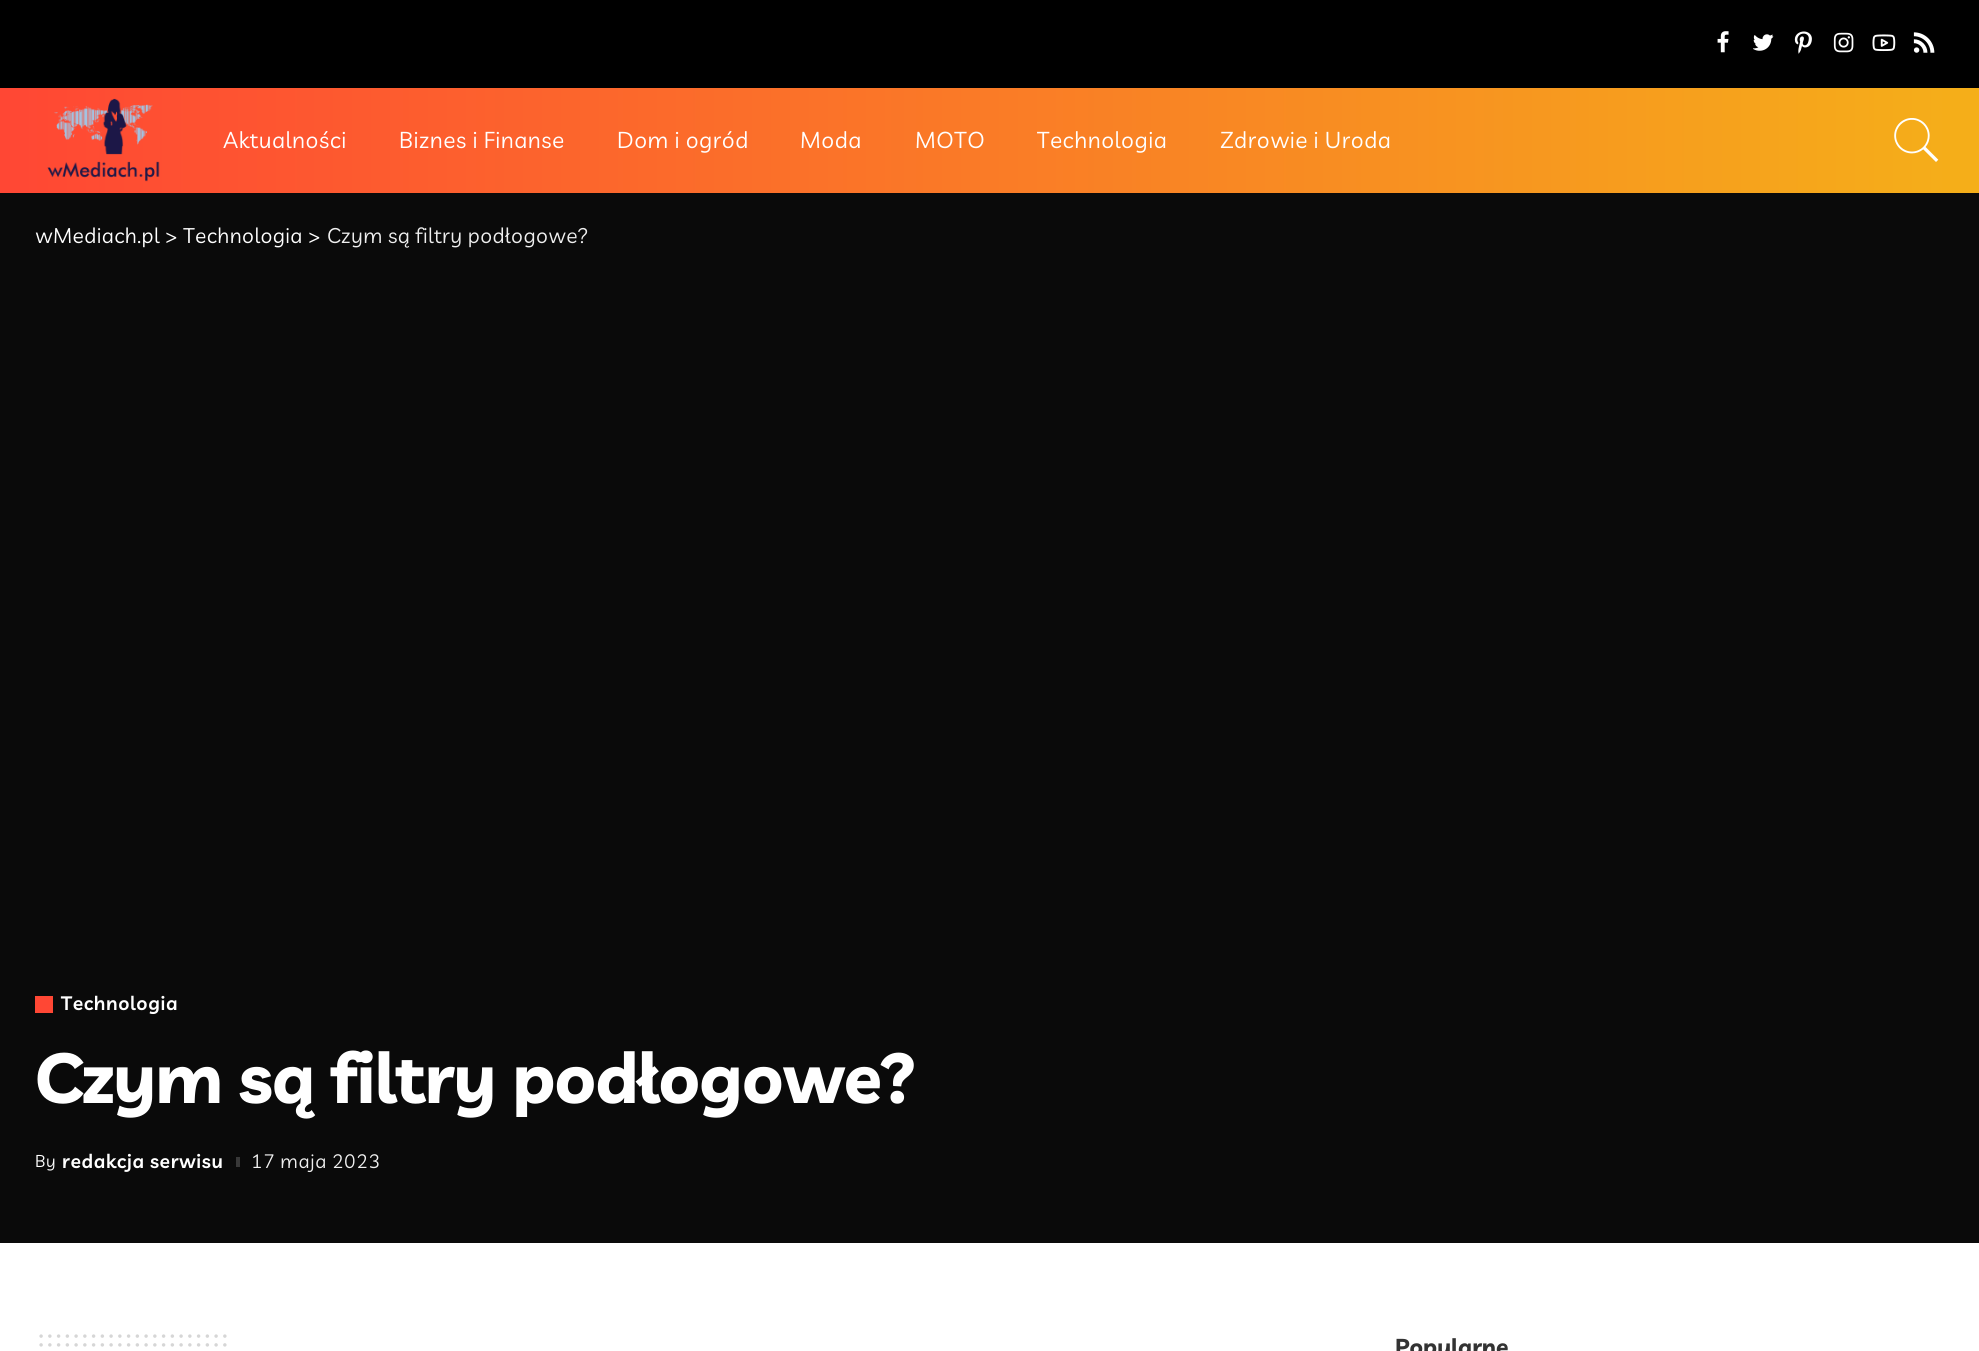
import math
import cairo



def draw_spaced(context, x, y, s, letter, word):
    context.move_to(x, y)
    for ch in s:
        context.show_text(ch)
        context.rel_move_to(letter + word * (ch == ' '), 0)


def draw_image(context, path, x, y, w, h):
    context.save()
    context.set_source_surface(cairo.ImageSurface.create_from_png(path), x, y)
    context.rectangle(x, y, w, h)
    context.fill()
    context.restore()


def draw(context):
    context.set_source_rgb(1, 1, 1)
    context.paint()
    context.set_source_rgb(0, 0, 0)
    context.rectangle(0, 0, 1979, 88)
    context.fill()
    draw_image(context, "images/1.png", 1717, 31, 12, 22)
    draw_image(context, "images/2.png", 1753, 34, 21, 17)
    draw_image(context, "images/3.png", 1794, 31, 18, 23)
    draw_image(context, "images/4.png", 1833, 32, 21, 21)
    draw_image(context, "images/5.png", 1872, 34, 24, 18)
    draw_image(context, "images/6.png", 1913, 32, 22, 21)
    gradient = cairo.LinearGradient(0, 140, 1979, 140)
    gradient.add_color_stop_rgba(0, 1, 71 / 255, 52 / 255, 1)
    gradient.add_color_stop_rgba(1, 245 / 255, 175 / 255, 25 / 255, 1)
    context.set_source(gradient)
    context.rectangle(0, 88, 1979, 105)
    context.fill()
    draw_image(context, "images/7.png", 47, 98, 113, 84)
    draw_image(context, "images/8.png", 1894, 118, 45, 44)
    context.set_source_rgb(10 / 255, 10 / 255, 10 / 255)
    context.rectangle(0, 193, 1979, 1050)
    context.fill()
    context.set_source_rgb(1, 71 / 255, 52 / 255)
    context.rectangle(35, 996, 18, 17)
    context.fill()
    context.set_source_rgb(56 / 255, 56 / 255, 56 / 255)
    context.rectangle(236, 1157, 4, 10)
    context.fill()
    context.new_path()
    context.move_to(41.1, 1336.1)
    context.line_to(225.2, 1336.1)
    context.set_source_rgb(214 / 255, 214 / 255, 214 / 255)
    context.set_line_width(3.5)
    context.set_line_cap(cairo.LineCap.ROUND)
    context.set_dash([0, 8.75])
    context.stroke()
    context.new_path()
    context.move_to(41.1, 1344.9)
    context.line_to(225.2, 1344.9)
    context.stroke()
    context.select_font_face("Livvic")
    context.set_font_size(22.75)
    context.set_source_rgb(1, 1, 1)
    draw_spaced(context, 223, 148, "Aktualności", 0.5, 0)
    draw_spaced(context, 399, 148, "Biznes i Finanse", 0.5, 0)
    draw_spaced(context, 617, 148, "Dom i ogród", 0.5, 0)
    draw_spaced(context, 800, 148, "Moda", 0.5, 0)
    draw_spaced(context, 915, 148, "MOTO", 0.5, 0)
    draw_spaced(context, 1037, 148, "Technologia", 0.5, 0)
    draw_spaced(context, 1220, 148, "Zdrowie i Uroda", 0.5, 0)
    context.set_font_size(21)
    draw_spaced(context, 35, 243, "wMediach.pl > Technologia >", 0.4, 0)
    context.set_source_rgb(239 / 255, 239 / 255, 239 / 255)
    draw_spaced(context, 327, 243, "Czym są filtry podłogowe?", 0.4, 0)
    context.select_font_face("Livvic SemiBold")
    context.set_font_size(19.25)
    context.set_source_rgb(1, 1, 1)
    draw_spaced(context, 61, 1010, "Technologia", 0.6, 0)
    context.select_font_face("Livvic", cairo.FontSlant.NORMAL, cairo.FontWeight.BOLD)
    context.set_font_size(70)
    draw_spaced(context, 35, 1103, "Czym są filtry podłogowe?", -0.9, 0)
    context.select_font_face("Livvic")
    context.set_font_size(17)
    draw_spaced(context, 35, 1167, "By", 0.6, 0)
    context.select_font_face("Livvic SemiBold")
    context.set_font_size(19.25)
    draw_spaced(context, 62, 1168, "redakcja serwisu", 0.6, 0)
    context.select_font_face("Livvic")
    context.set_source_rgb(239 / 255, 239 / 255, 239 / 255)
    draw_spaced(context, 251, 1168, "17 maja 2023", 0.6, 0)
    context.select_font_face("Livvic", cairo.FontSlant.NORMAL, cairo.FontWeight.BOLD)
    context.set_font_size(22.75)
    context.set_source_rgb(51 / 255, 51 / 255, 51 / 255)
    context.move_to(1395, 1355)
    context.show_text("Popularne")


surface = cairo.ImageSurface(cairo.Format.RGB24, 1979, 1351)
context = cairo.Context(surface)
options = cairo.FontOptions()
options.set_hint_metrics(cairo.HintMetrics.OFF)
options.set_hint_style(cairo.HintStyle.NONE)
context.set_font_options(options)
context.set_miter_limit(4)
draw(context)
surface.write_to_png("out.png")
